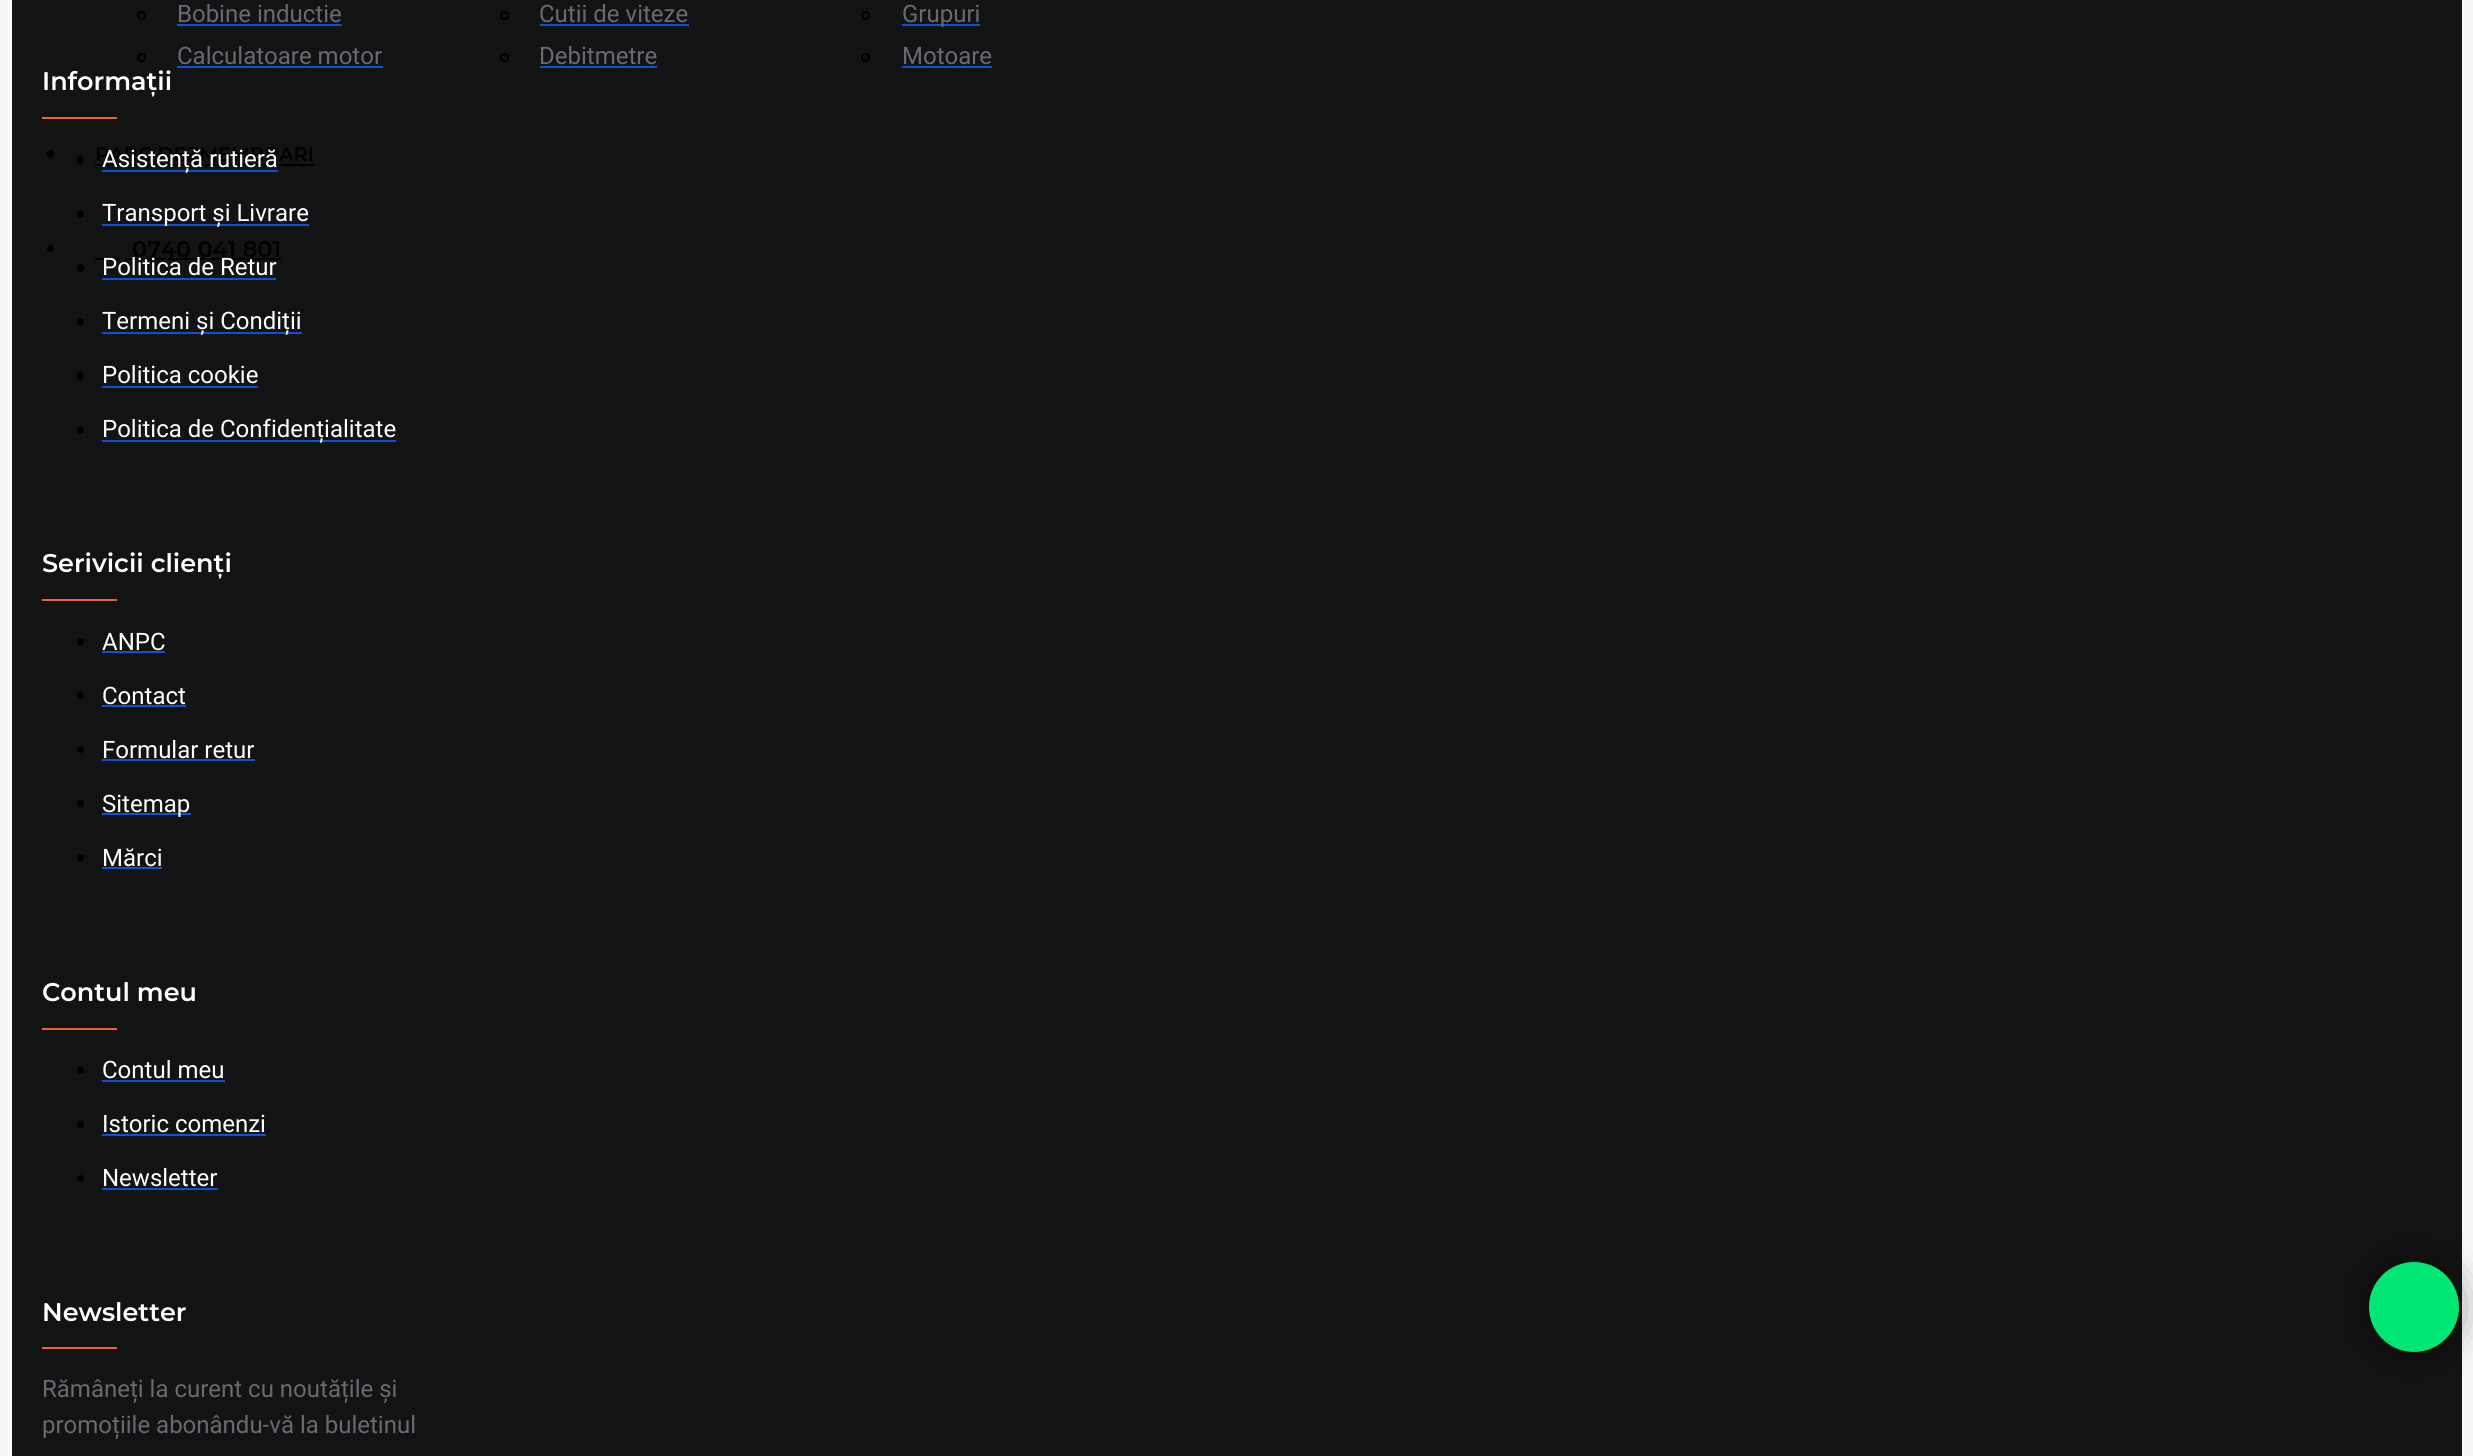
import math
import cairo



def rounded_rect(context, x, y, w, h, r):
    context.new_sub_path()
    for i, (u, v) in enumerate([(x + w - r, y + h - r), (x + r, y + h - r), (x + r, y + r), (x + w - r, y + r)]):
        context.arc(u, v, r, i * math.pi / 2, (i + 1) * math.pi / 2)
    context.close_path()


def draw_shadow(context, x, y, w, h, r, blur, alpha):
    context.push_group_with_content(cairo.Content.ALPHA)
    context.set_operator(cairo.Operator.SOURCE)
    for i in range(15, -16, -2):
        e = blur * i / 6
        if min(w, h) + 2 * e > 0:
            context.set_source_rgba(0, 0, 0, alpha * math.erfc((i - 1) / 8.5) / 2)
            rounded_rect(context, x - e, y - e, w + 2 * e, h + 2 * e, max(0, min(r + e + blur * .6, min(w, h) / 2 + e)))
            context.fill()
    context.mask(context.pop_group())


def draw(context):
    context.set_source_rgb(248 / 255, 248 / 255, 248 / 255)
    context.paint()
    context.set_source_rgb(19 / 255, 19 / 255, 19 / 255)
    context.rectangle(12, 0, 2450, 1456)
    context.fill()
    context.arc(141.5, 15.5, 3.5, 0, 2 * math.pi)
    context.set_source_rgb(0, 0, 0)
    context.stroke()
    context.set_source_rgb(13 / 255, 82 / 255, 214 / 255)
    context.rectangle(177, 24, 165, 2)
    context.fill()
    context.arc(504.5, 15.5, 3.5, 0, 2 * math.pi)
    context.set_source_rgb(0, 0, 0)
    context.stroke()
    context.set_source_rgb(13 / 255, 82 / 255, 214 / 255)
    context.rectangle(540, 24, 149, 2)
    context.fill()
    context.arc(865.5, 15.5, 3.5, 0, 2 * math.pi)
    context.set_source_rgb(0, 0, 0)
    context.stroke()
    context.set_source_rgb(13 / 255, 82 / 255, 214 / 255)
    context.rectangle(902, 24, 78, 2)
    context.fill()
    context.arc(141.5, 57.5, 3.5, 0, 2 * math.pi)
    context.set_source_rgb(0, 0, 0)
    context.stroke()
    context.set_source_rgb(13 / 255, 82 / 255, 214 / 255)
    context.rectangle(177, 66, 206, 2)
    context.fill()
    context.arc(504.5, 57.5, 3.5, 0, 2 * math.pi)
    context.set_source_rgb(0, 0, 0)
    context.stroke()
    context.set_source_rgb(13 / 255, 82 / 255, 214 / 255)
    context.rectangle(540, 66, 117, 2)
    context.fill()
    context.arc(865.5, 57.5, 3.5, 0, 2 * math.pi)
    context.set_source_rgb(0, 0, 0)
    context.stroke()
    context.set_source_rgb(13 / 255, 82 / 255, 214 / 255)
    context.rectangle(902, 66, 90, 2)
    context.fill()
    context.set_source_rgb(0, 0, 0)
    rounded_rect(context, 47, 150, 7, 8, 3.5)
    context.fill()
    context.rectangle(95, 164, 219, 2)
    context.fill()
    context.arc(50.5, 248.5, 3.5, 0, 2 * math.pi)
    context.fill()
    context.rectangle(95, 258, 24, 2)
    context.fill()
    context.rectangle(126, 258, 155, 2)
    context.fill()
    context.set_source_rgb(233 / 255, 102 / 255, 49 / 255)
    context.rectangle(42, 117, 75, 2)
    context.fill()
    context.set_source_rgb(0, 0, 0)
    rounded_rect(context, 77, 156, 7, 8, 3.5)
    context.fill()
    context.set_source_rgb(13 / 255, 82 / 255, 214 / 255)
    context.rectangle(102, 170, 176, 2)
    context.fill()
    context.set_source_rgb(0, 0, 0)
    rounded_rect(context, 77, 210, 7, 8, 3.5)
    context.fill()
    context.set_source_rgb(13 / 255, 82 / 255, 214 / 255)
    context.rectangle(102, 224, 207, 2)
    context.fill()
    context.set_source_rgb(0, 0, 0)
    rounded_rect(context, 77, 264, 7, 8, 3.5)
    context.fill()
    context.set_source_rgb(13 / 255, 82 / 255, 214 / 255)
    context.rectangle(102, 278, 174, 2)
    context.fill()
    context.set_source_rgb(0, 0, 0)
    rounded_rect(context, 77, 318, 7, 8, 3.5)
    context.fill()
    context.set_source_rgb(13 / 255, 82 / 255, 214 / 255)
    context.rectangle(102, 332, 200, 2)
    context.fill()
    context.set_source_rgb(0, 0, 0)
    rounded_rect(context, 77, 372, 7, 8, 3.5)
    context.fill()
    context.set_source_rgb(13 / 255, 82 / 255, 214 / 255)
    context.rectangle(102, 386, 156, 2)
    context.fill()
    context.set_source_rgb(0, 0, 0)
    rounded_rect(context, 77, 426, 7, 8, 3.5)
    context.fill()
    context.set_source_rgb(13 / 255, 82 / 255, 214 / 255)
    context.rectangle(102, 440, 294, 2)
    context.fill()
    context.set_source_rgb(233 / 255, 102 / 255, 49 / 255)
    context.rectangle(42, 599, 75, 2)
    context.fill()
    context.set_source_rgb(0, 0, 0)
    context.arc(80.5, 641.5, 3.5, 0, 2 * math.pi)
    context.fill()
    context.set_source_rgb(13 / 255, 82 / 255, 214 / 255)
    context.rectangle(102, 651, 63, 2)
    context.fill()
    context.set_source_rgb(0, 0, 0)
    context.arc(80.5, 695.5, 3.5, 0, 2 * math.pi)
    context.fill()
    context.set_source_rgb(13 / 255, 82 / 255, 214 / 255)
    context.rectangle(102, 705, 84, 2)
    context.fill()
    context.set_source_rgb(0, 0, 0)
    context.arc(80.5, 749.5, 3.5, 0, 2 * math.pi)
    context.fill()
    context.set_source_rgb(13 / 255, 82 / 255, 214 / 255)
    context.rectangle(102, 759, 153, 2)
    context.fill()
    context.set_source_rgb(0, 0, 0)
    context.arc(80.5, 803.5, 3.5, 0, 2 * math.pi)
    context.fill()
    context.set_source_rgb(13 / 255, 82 / 255, 214 / 255)
    context.rectangle(102, 813, 89, 2)
    context.fill()
    context.set_source_rgb(0, 0, 0)
    context.arc(80.5, 857.5, 3.5, 0, 2 * math.pi)
    context.fill()
    context.set_source_rgb(13 / 255, 82 / 255, 214 / 255)
    context.rectangle(102, 867, 60, 2)
    context.fill()
    context.set_source_rgb(233 / 255, 102 / 255, 49 / 255)
    context.rectangle(42, 1028, 75, 2)
    context.fill()
    context.set_source_rgb(0, 0, 0)
    context.arc(80.5, 1070.5, 3.5, 0, 2 * math.pi)
    context.fill()
    context.set_source_rgb(13 / 255, 82 / 255, 214 / 255)
    context.rectangle(102, 1080, 123, 2)
    context.fill()
    context.set_source_rgb(0, 0, 0)
    context.arc(80.5, 1124.5, 3.5, 0, 2 * math.pi)
    context.fill()
    context.set_source_rgb(13 / 255, 82 / 255, 214 / 255)
    context.rectangle(102, 1134, 164, 2)
    context.fill()
    context.set_source_rgb(0, 0, 0)
    context.arc(80.5, 1178.5, 3.5, 0, 2 * math.pi)
    context.fill()
    context.set_source_rgb(13 / 255, 82 / 255, 214 / 255)
    context.rectangle(102, 1188, 116, 2)
    context.fill()
    context.set_source_rgb(233 / 255, 102 / 255, 49 / 255)
    context.rectangle(42, 1347, 75, 2)
    context.fill()
    context.set_source_rgb(0, 0, 0)
    draw_shadow(context, 2369, 1262, 90, 90, 45, 19, 0.4)
    context.set_source_rgb(1 / 255, 230 / 255, 117 / 255)
    context.arc(2414, 1307, 45, 0, 2 * math.pi)
    context.fill()
    context.select_font_face("Roboto")
    context.set_font_size(24)
    context.set_source_rgb(105 / 255, 105 / 255, 115 / 255)
    context.move_to(177, 22)
    context.show_text("Bobine inductie")
    context.move_to(539, 22)
    context.show_text("Cutii de viteze")
    context.move_to(902, 22)
    context.show_text("Grupuri")
    context.move_to(177, 64)
    context.show_text("Calculatoare motor")
    context.move_to(539, 64)
    context.show_text("Debitmetre")
    context.move_to(902, 64)
    context.show_text("Motoare")
    context.select_font_face("Montserrat SemiBold")
    context.set_font_size(19.5)
    context.set_source_rgb(0, 0, 0)
    context.move_to(95, 161)
    context.show_text("PARC DEZMEMBRARI")
    context.set_font_size(22.5)
    context.move_to(132, 257)
    context.show_text("0740 041 801")
    context.set_font_size(25.5)
    context.set_source_rgb(1, 1, 1)
    context.move_to(42, 90)
    context.show_text("Informații")
    context.select_font_face("Roboto")
    context.set_font_size(24)
    context.move_to(102, 167)
    context.show_text("Asistență rutieră")
    context.move_to(102, 221)
    context.show_text("Transport și Livrare")
    context.move_to(102, 275)
    context.show_text("Politica de Retur")
    context.move_to(102, 329)
    context.show_text("Termeni și Condiții")
    context.move_to(102, 383)
    context.show_text("Politica cookie")
    context.move_to(102, 437)
    context.show_text("Politica de Confidențialitate")
    context.select_font_face("Montserrat SemiBold")
    context.set_font_size(25.5)
    context.move_to(42, 572)
    context.show_text("Serivicii clienți")
    context.select_font_face("Roboto")
    context.set_font_size(24)
    context.move_to(102, 650)
    context.show_text("ANPC")
    context.move_to(102, 704)
    context.show_text("Contact")
    context.move_to(102, 758)
    context.show_text("Formular retur")
    context.move_to(102, 812)
    context.show_text("Sitemap")
    context.move_to(102, 866)
    context.show_text("Mărci")
    context.select_font_face("Montserrat SemiBold")
    context.set_font_size(25.5)
    context.move_to(42, 1001)
    context.show_text("Contul meu")
    context.select_font_face("Roboto")
    context.set_font_size(24)
    context.move_to(102, 1078)
    context.show_text("Contul meu")
    context.move_to(102, 1132)
    context.show_text("Istoric comenzi")
    context.move_to(102, 1186)
    context.show_text("Newsletter")
    context.select_font_face("Montserrat SemiBold")
    context.set_font_size(25.5)
    context.move_to(42, 1321)
    context.show_text("Newsletter")
    context.select_font_face("Roboto")
    context.set_font_size(24)
    context.set_source_rgb(105 / 255, 105 / 255, 115 / 255)
    context.move_to(42, 1397)
    context.show_text("Rămâneți la curent cu noutățile și")
    context.move_to(42, 1433)
    context.show_text("promoțiile abonându-vă la buletinul")


surface = cairo.ImageSurface(cairo.Format.RGB24, 2473, 1456)
context = cairo.Context(surface)
options = cairo.FontOptions()
options.set_hint_metrics(cairo.HintMetrics.OFF)
options.set_hint_style(cairo.HintStyle.NONE)
context.set_font_options(options)
context.set_miter_limit(4)
draw(context)
surface.write_to_png("out.png")
